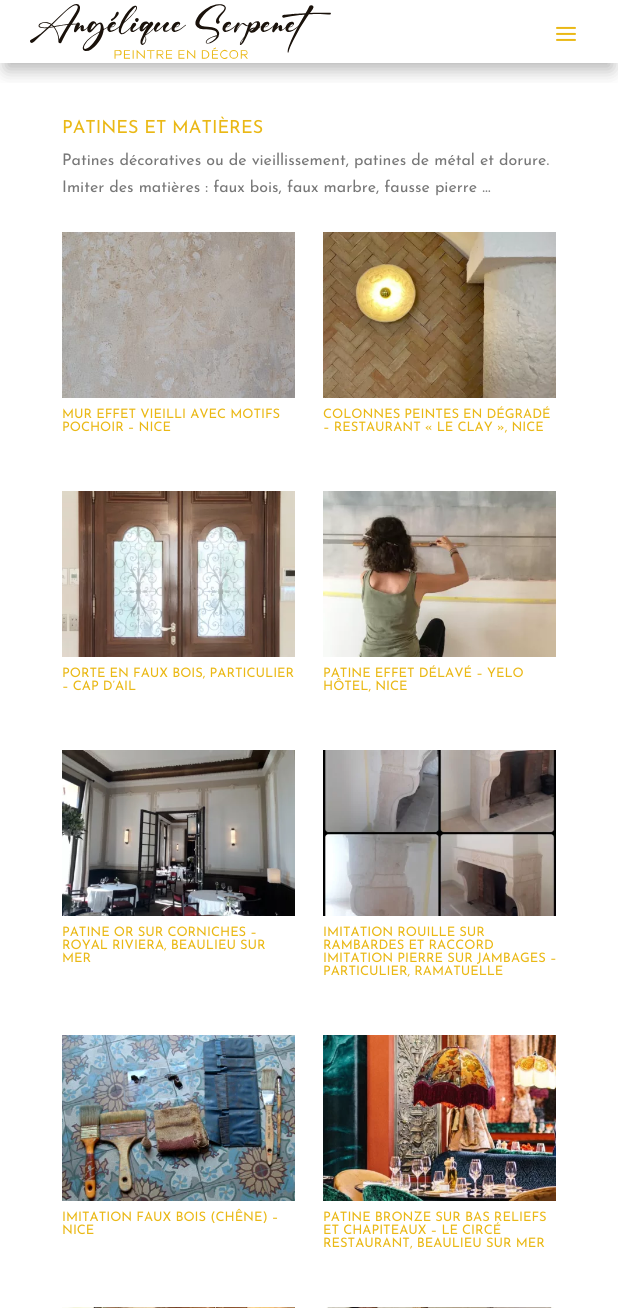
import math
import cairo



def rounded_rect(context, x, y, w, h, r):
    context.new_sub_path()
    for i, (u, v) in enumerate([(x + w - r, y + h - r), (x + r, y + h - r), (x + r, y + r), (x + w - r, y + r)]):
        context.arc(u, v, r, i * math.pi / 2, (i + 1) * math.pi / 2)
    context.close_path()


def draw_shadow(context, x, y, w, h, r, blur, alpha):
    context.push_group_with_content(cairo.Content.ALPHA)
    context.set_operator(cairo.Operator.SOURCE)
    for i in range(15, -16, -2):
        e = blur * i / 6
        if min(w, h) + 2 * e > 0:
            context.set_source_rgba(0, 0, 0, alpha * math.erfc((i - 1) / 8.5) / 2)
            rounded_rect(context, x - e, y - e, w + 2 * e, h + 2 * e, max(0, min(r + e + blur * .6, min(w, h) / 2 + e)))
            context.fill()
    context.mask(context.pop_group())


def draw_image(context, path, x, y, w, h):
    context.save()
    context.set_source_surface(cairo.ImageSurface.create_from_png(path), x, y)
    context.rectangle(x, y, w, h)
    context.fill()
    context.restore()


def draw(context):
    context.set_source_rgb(1, 1, 1)
    context.paint()
    context.save()
    context.rectangle(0, 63, 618, 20)
    context.clip()
    context.set_source_rgb(0, 0, 0)
    draw_shadow(context, 6, 18, 606, 51, 0, 9, 0.3)
    context.restore()
    draw_image(context, "images/1.png", 30, 4, 301, 55)
    draw_image(context, "images/2.png", 556, 26, 20, 15)
    draw_image(context, "images/3.png", 62, 232, 233, 166)
    draw_image(context, "images/4.png", 323, 232, 233, 166)
    draw_image(context, "images/5.png", 62, 491, 233, 166)
    draw_image(context, "images/6.png", 323, 491, 233, 166)
    draw_image(context, "images/7.png", 62, 750, 233, 166)
    draw_image(context, "images/8.png", 323, 750, 233, 166)
    draw_image(context, "images/9.png", 62, 1035, 233, 166)
    draw_image(context, "images/10.png", 323, 1035, 233, 166)
    draw_image(context, "images/11.png", 62, 1307, 233, 1)
    draw_image(context, "images/12.png", 326, 1307, 228, 1)
    context.select_font_face("Josefin Sans Thin")
    context.set_font_size(18)
    context.set_source_rgb(234 / 255, 184 / 255, 21 / 255)
    context.move_to(62, 133)
    context.show_text("PATINES ET MATIÈRES")
    context.set_font_size(16)
    context.set_source_rgb(119 / 255, 119 / 255, 119 / 255)
    context.move_to(62, 165)
    context.show_text("Patines décoratives ou de vieillissement, patines de métal et dorure.")
    context.move_to(62, 192)
    context.show_text("Imiter des matières : faux bois, faux marbre, fausse pierre …")
    context.set_font_size(13)
    context.set_source_rgb(234 / 255, 184 / 255, 21 / 255)
    context.move_to(62, 418)
    context.show_text("MUR EFFET VIEILLI AVEC MOTIFS")
    context.move_to(62, 431)
    context.show_text("POCHOIR – NICE")
    context.move_to(323, 418)
    context.show_text("COLONNES PEINTES EN DÉGRADÉ")
    context.move_to(323, 431)
    context.show_text("– RESTAURANT « LE CLAY », NICE")
    context.move_to(62, 677)
    context.show_text("PORTE EN FAUX BOIS, PARTICULIER")
    context.move_to(62, 690)
    context.show_text("– CAP D’AIL")
    context.move_to(323, 677)
    context.show_text("PATINE EFFET DÉLAVÉ – YELO")
    context.move_to(323, 690)
    context.show_text("HÔTEL, NICE")
    context.move_to(62, 936)
    context.show_text("PATINE OR SUR CORNICHES –")
    context.move_to(62, 949)
    context.show_text("ROYAL RIVIERA, BEAULIEU SUR")
    context.move_to(62, 962)
    context.show_text("MER")
    context.move_to(323, 936)
    context.show_text("IMITATION ROUILLE SUR")
    context.move_to(323, 949)
    context.show_text("RAMBARDES ET RACCORD")
    context.move_to(323, 962)
    context.show_text("IMITATION PIERRE SUR JAMBAGES –")
    context.move_to(323, 975)
    context.show_text("PARTICULIER, RAMATUELLE")
    context.move_to(62, 1221)
    context.show_text("IMITATION FAUX BOIS (CHÊNE) –")
    context.move_to(62, 1234)
    context.show_text("NICE")
    context.move_to(323, 1221)
    context.show_text("PATINE BRONZE SUR BAS RELIEFS")
    context.move_to(323, 1234)
    context.show_text("ET CHAPITEAUX – LE CIRCÉ")
    context.move_to(323, 1247)
    context.show_text("RESTAURANT, BEAULIEU SUR MER")


surface = cairo.ImageSurface(cairo.Format.RGB24, 618, 1308)
context = cairo.Context(surface)
options = cairo.FontOptions()
options.set_hint_metrics(cairo.HintMetrics.OFF)
options.set_hint_style(cairo.HintStyle.NONE)
context.set_font_options(options)
context.set_miter_limit(4)
draw(context)
surface.write_to_png("out.png")
